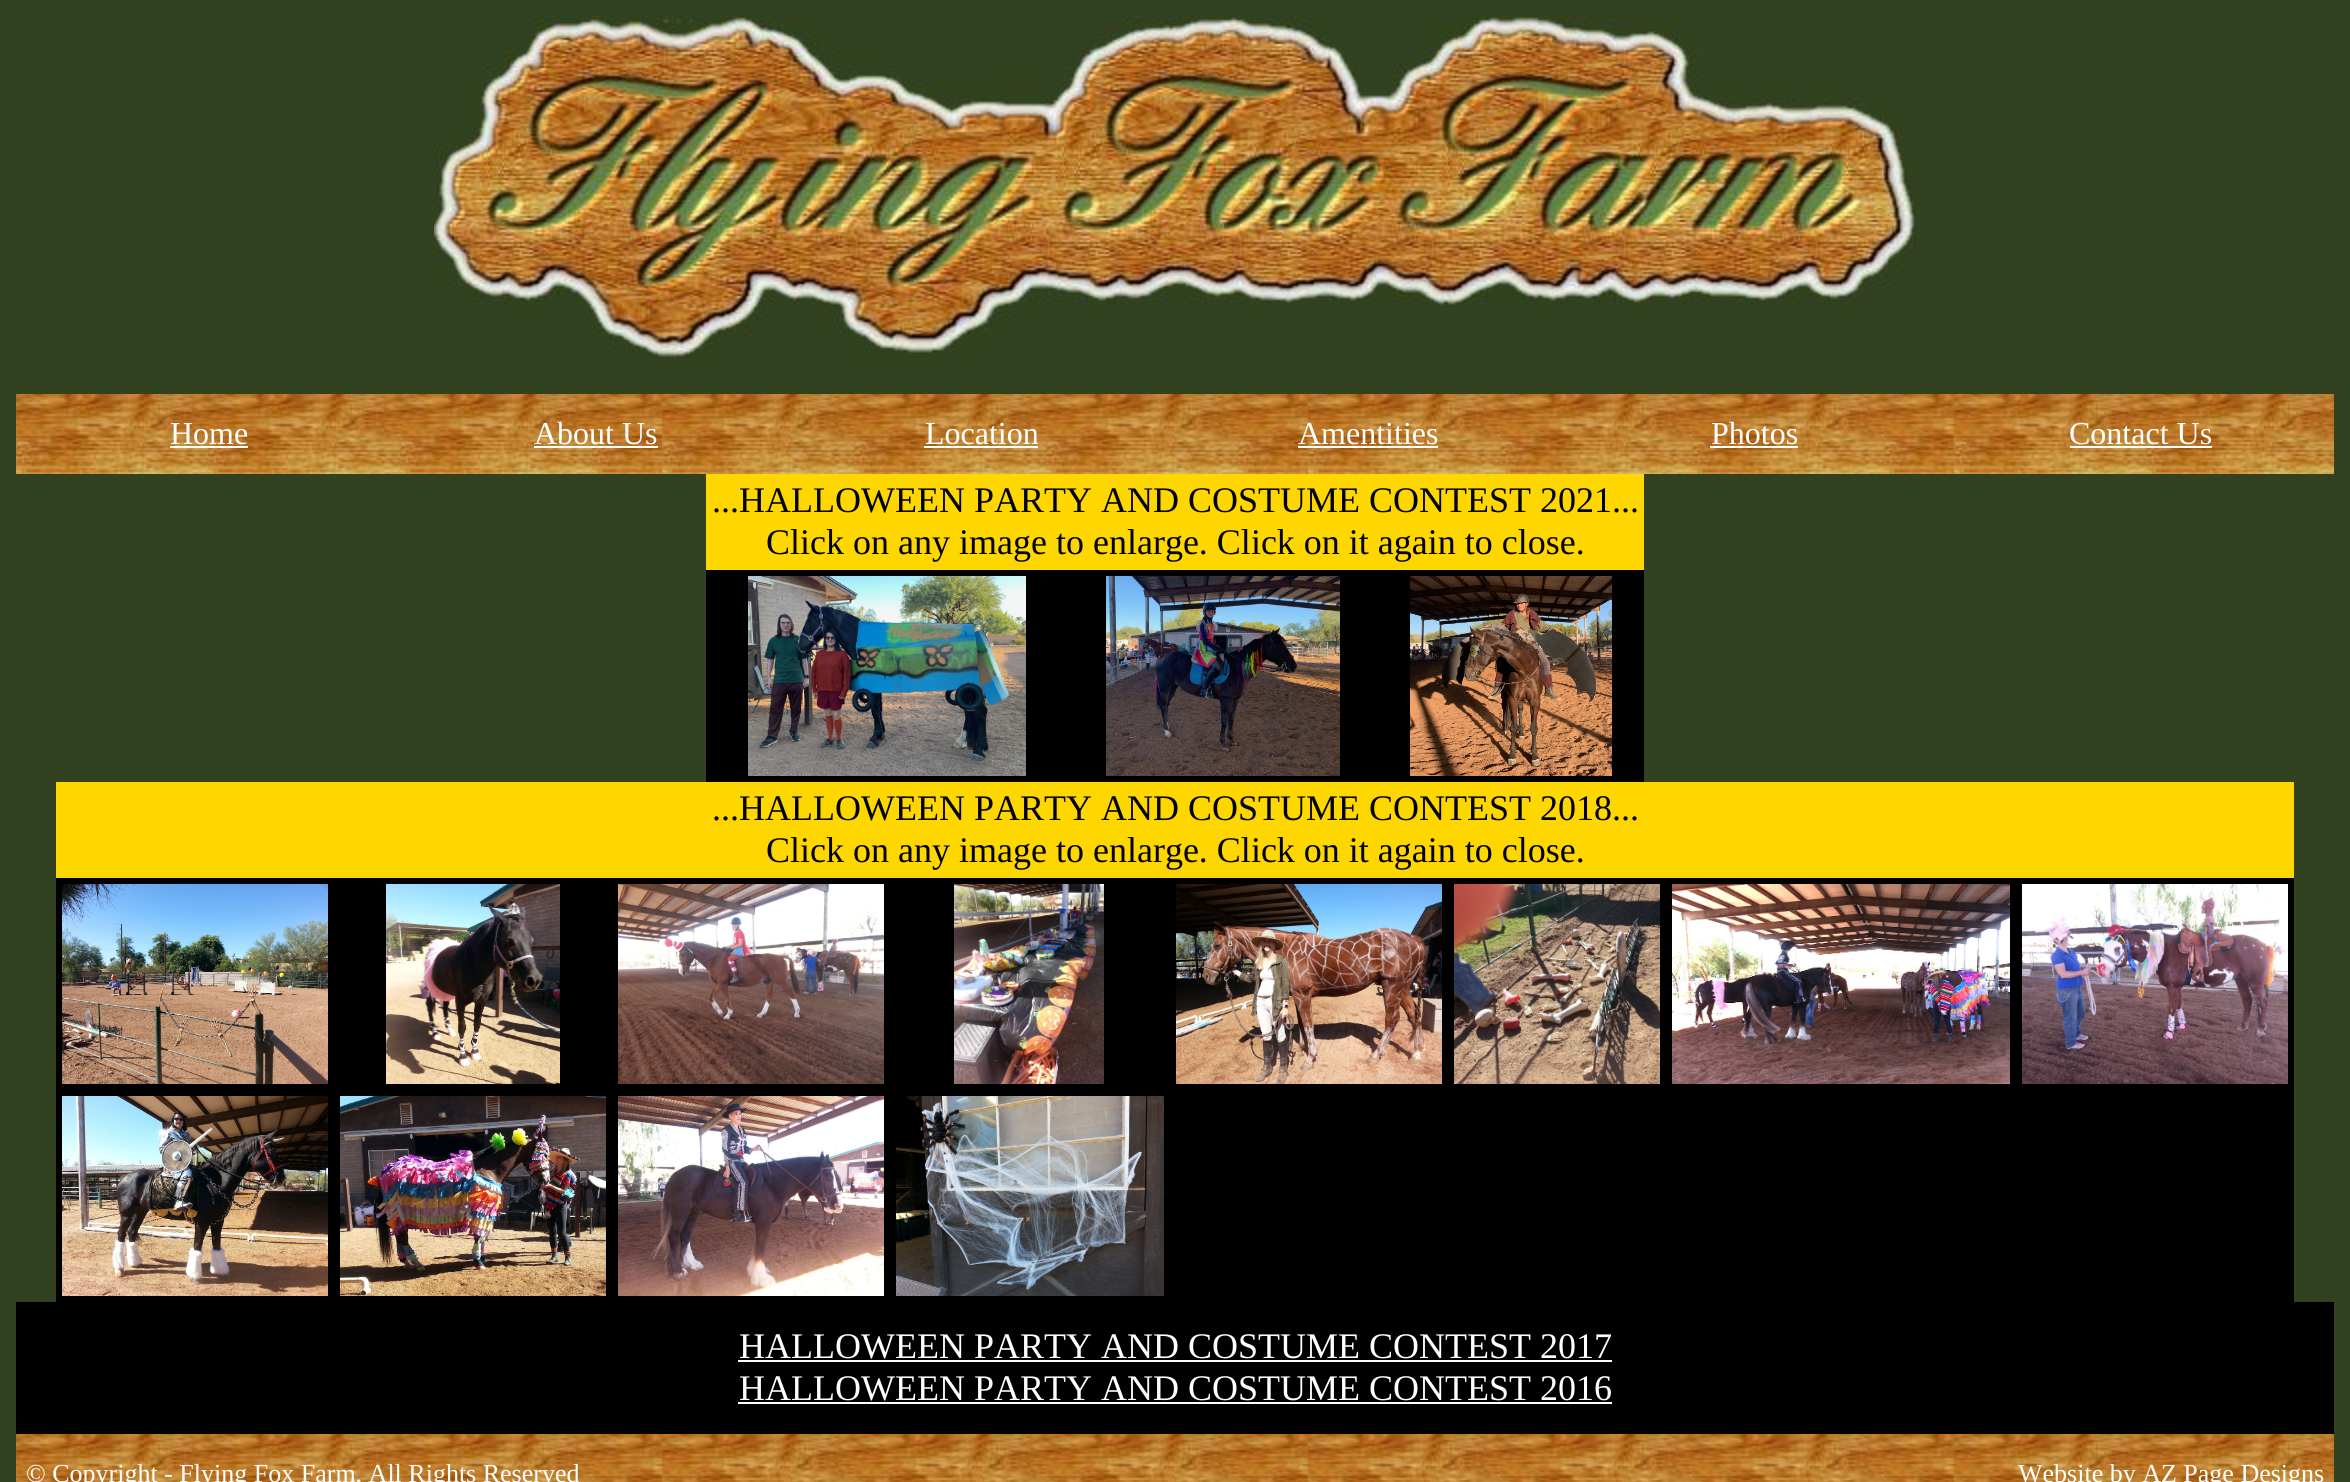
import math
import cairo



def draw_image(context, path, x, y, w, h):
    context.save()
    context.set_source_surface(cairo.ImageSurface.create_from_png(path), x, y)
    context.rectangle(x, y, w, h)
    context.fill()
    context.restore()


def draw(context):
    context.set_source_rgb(50 / 255, 66 / 255, 32 / 255)
    context.paint()
    draw_image(context, "images/1.png", 434, 16, 1482, 342)
    draw_image(context, "images/2.png", 16, 394, 2318, 80)
    context.set_source_rgb(1, 1, 1)
    context.rectangle(170, 446, 78, 2)
    context.fill()
    context.rectangle(534, 446, 124, 2)
    context.fill()
    context.rectangle(924, 446, 114, 2)
    context.fill()
    context.rectangle(1298, 446, 140, 2)
    context.fill()
    context.rectangle(1710, 446, 88, 2)
    context.fill()
    context.rectangle(2070, 446, 142, 2)
    context.fill()
    context.set_source_rgb(0, 0, 0)
    context.rectangle(706, 570, 938, 212)
    context.fill()
    context.set_source_rgb(1, 215 / 255, 0)
    context.rectangle(706, 474, 938, 96)
    context.fill()
    draw_image(context, "images/3.png", 748, 576, 278, 200)
    draw_image(context, "images/4.png", 1106, 576, 234, 200)
    draw_image(context, "images/5.png", 1410, 576, 202, 200)
    context.set_source_rgb(0, 0, 0)
    context.rectangle(56, 878, 2238, 424)
    context.fill()
    context.set_source_rgb(1, 215 / 255, 0)
    context.rectangle(56, 782, 2238, 96)
    context.fill()
    draw_image(context, "images/6.png", 62, 884, 266, 200)
    draw_image(context, "images/7.png", 386, 884, 174, 200)
    draw_image(context, "images/8.png", 618, 884, 266, 200)
    draw_image(context, "images/9.png", 954, 884, 150, 200)
    draw_image(context, "images/10.png", 1176, 884, 266, 200)
    draw_image(context, "images/11.png", 1454, 884, 206, 200)
    draw_image(context, "images/12.png", 1672, 884, 338, 200)
    draw_image(context, "images/13.png", 2022, 884, 266, 200)
    draw_image(context, "images/14.png", 62, 1096, 266, 200)
    draw_image(context, "images/15.png", 340, 1096, 266, 200)
    draw_image(context, "images/16.png", 618, 1096, 266, 200)
    draw_image(context, "images/17.png", 896, 1096, 268, 200)
    context.set_source_rgb(0, 0, 0)
    context.rectangle(16, 1302, 2318, 132)
    context.fill()
    context.set_source_rgb(1, 1, 1)
    context.rectangle(738, 1360, 874, 2)
    context.fill()
    context.rectangle(738, 1402, 874, 2)
    context.fill()
    draw_image(context, "images/18.png", 16, 1434, 2318, 48)
    context.select_font_face("Liberation Serif")
    context.set_font_size(32)
    context.move_to(170, 444)
    context.show_text("Home")
    context.move_to(534, 444)
    context.show_text("About Us")
    context.move_to(925, 444)
    context.show_text("Location")
    context.move_to(1298, 444)
    context.show_text("Amentities")
    context.move_to(1711, 444)
    context.show_text("Photos")
    context.move_to(2069, 444)
    context.show_text("Contact Us")
    context.set_font_size(36)
    context.set_source_rgb(0, 0, 0)
    context.move_to(712, 512)
    context.show_text("...HALLOWEEN PARTY AND COSTUME CONTEST 2021...")
    context.move_to(766, 554)
    context.show_text("Click on any image to enlarge. Click on it again to close.")
    context.move_to(712, 820)
    context.show_text("...HALLOWEEN PARTY AND COSTUME CONTEST 2018...")
    context.move_to(766, 862)
    context.show_text("Click on any image to enlarge. Click on it again to close.")
    context.set_source_rgb(1, 1, 1)
    context.move_to(739, 1358)
    context.show_text("HALLOWEEN PARTY AND COSTUME CONTEST 2017")
    context.move_to(739, 1400)
    context.show_text("HALLOWEEN PARTY AND COSTUME CONTEST 2016")
    context.set_font_size(26)
    context.move_to(26, 1482)
    context.show_text("© Copyright - Flying Fox Farm, All Rights Reserved")
    context.move_to(2018, 1482)
    context.show_text("Website by AZ Page Designs")


surface = cairo.ImageSurface(cairo.Format.RGB24, 2350, 1482)
context = cairo.Context(surface)
options = cairo.FontOptions()
options.set_hint_metrics(cairo.HintMetrics.OFF)
options.set_hint_style(cairo.HintStyle.NONE)
context.set_font_options(options)
context.set_miter_limit(4)
draw(context)
surface.write_to_png("out.png")
